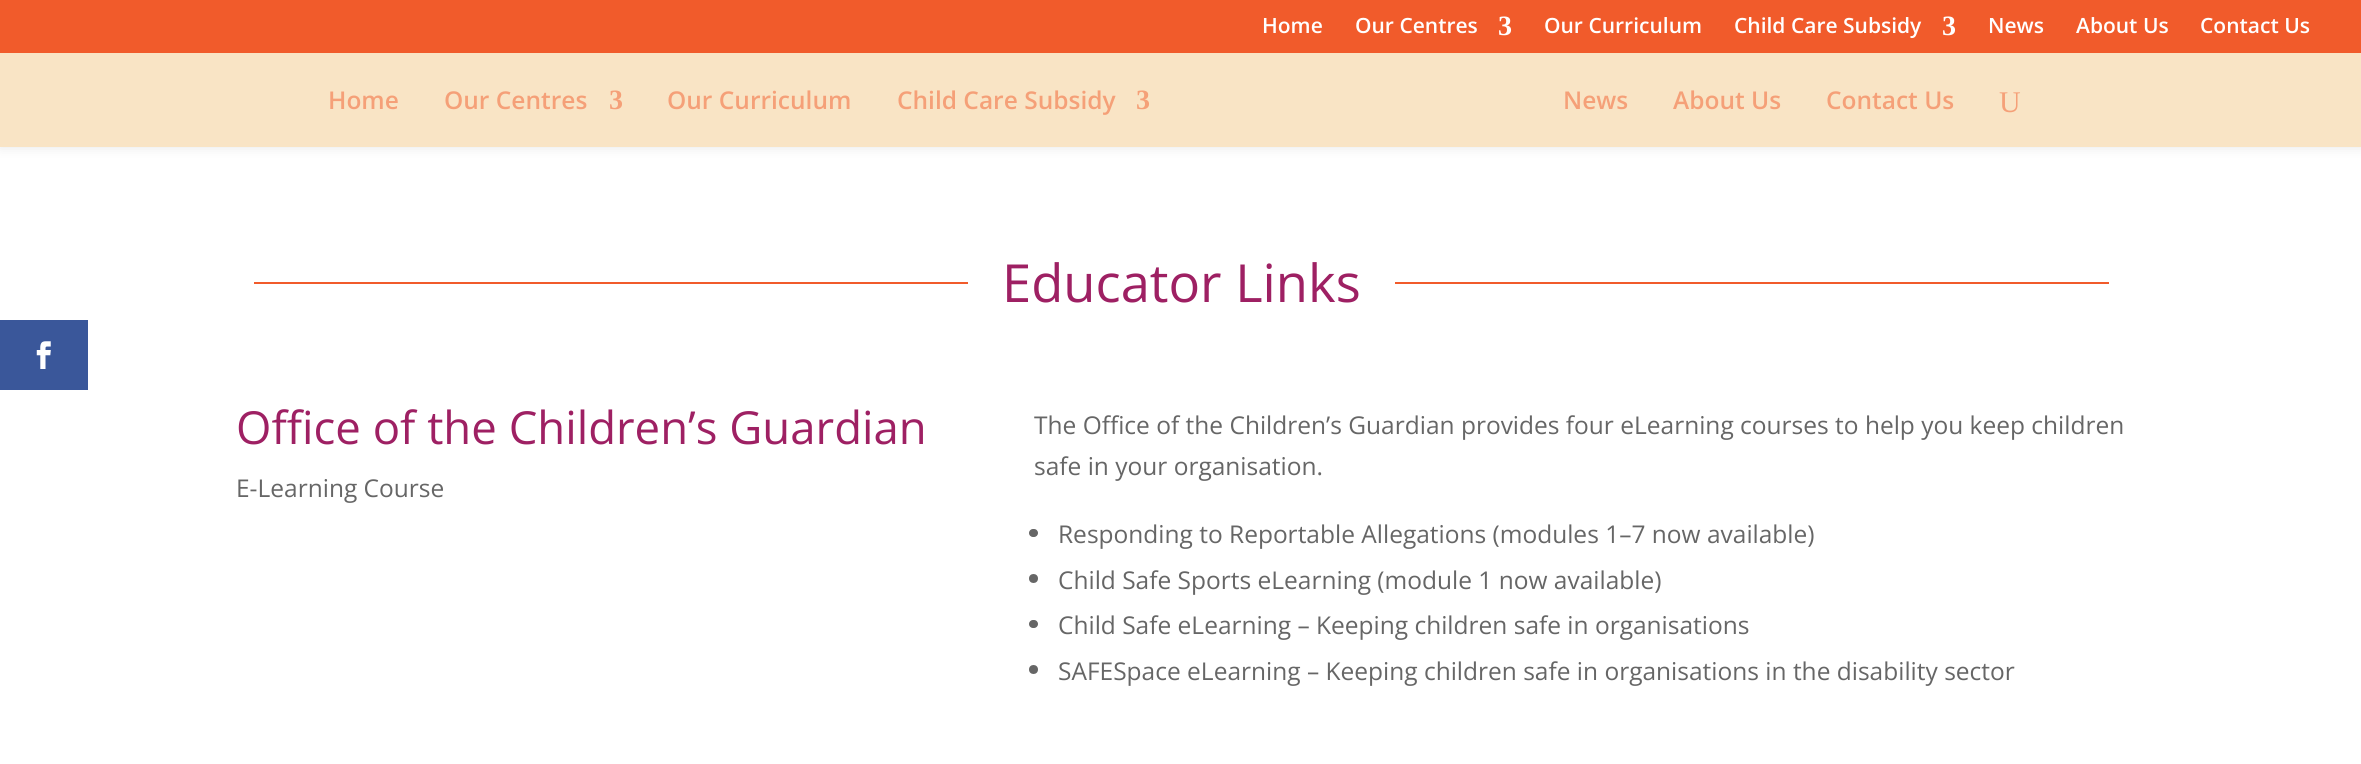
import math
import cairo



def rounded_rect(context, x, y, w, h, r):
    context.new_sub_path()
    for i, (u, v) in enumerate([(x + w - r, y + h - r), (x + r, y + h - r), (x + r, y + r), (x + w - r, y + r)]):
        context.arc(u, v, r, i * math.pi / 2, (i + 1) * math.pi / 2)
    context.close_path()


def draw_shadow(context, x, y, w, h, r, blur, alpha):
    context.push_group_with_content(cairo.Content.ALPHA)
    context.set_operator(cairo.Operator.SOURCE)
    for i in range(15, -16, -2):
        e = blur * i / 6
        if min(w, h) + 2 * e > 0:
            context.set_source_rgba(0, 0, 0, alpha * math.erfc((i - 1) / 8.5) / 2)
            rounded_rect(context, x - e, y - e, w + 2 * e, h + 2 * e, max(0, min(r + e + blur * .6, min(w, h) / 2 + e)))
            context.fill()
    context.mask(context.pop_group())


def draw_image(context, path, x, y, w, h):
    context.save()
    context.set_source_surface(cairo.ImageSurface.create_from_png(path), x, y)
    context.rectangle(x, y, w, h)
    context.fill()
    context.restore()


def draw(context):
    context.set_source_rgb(1, 1, 1)
    context.paint()
    context.set_source_rgb(58 / 255, 87 / 255, 154 / 255)
    context.rectangle(0, 320, 88, 70)
    context.fill()
    draw_image(context, "images/1.png", 36, 341, 15, 28)
    context.set_source_rgb(0, 0, 0)
    draw_shadow(context, 0, 53, 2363, 94, 0, 6, 0.1)
    context.set_source_rgb(241 / 255, 91 / 255, 43 / 255)
    context.rectangle(0, 0, 2361, 53)
    context.fill()
    context.set_source_rgb(249 / 255, 228 / 255, 197 / 255)
    context.rectangle(0, 53, 2361, 94)
    context.fill()
    context.set_source_rgb(241 / 255, 91 / 255, 43 / 255)
    context.rectangle(254, 282, 714, 2)
    context.fill()
    context.rectangle(1395, 282, 714, 2)
    context.fill()
    context.set_source_rgb(102 / 255, 102 / 255, 102 / 255)
    rounded_rect(context, 1029, 529, 9, 8, 4)
    context.fill()
    context.arc(1033.5, 578.5, 4.5, 0, 2 * math.pi)
    context.fill()
    rounded_rect(context, 1029, 620, 9, 8, 4)
    context.fill()
    context.arc(1033.5, 669.5, 4.5, 0, 2 * math.pi)
    context.fill()
    context.select_font_face("Open Sans SemiBold")
    context.set_font_size(21)
    context.set_source_rgb(1, 1, 1)
    context.move_to(1262, 33)
    context.show_text("Home")
    context.move_to(1355, 33)
    context.show_text("Our Centres")
    context.select_font_face("Liberation Serif", cairo.FontSlant.NORMAL, cairo.FontWeight.BOLD)
    context.set_font_size(28)
    context.move_to(1498, 35)
    context.show_text("3")
    context.select_font_face("Open Sans SemiBold")
    context.set_font_size(21)
    context.move_to(1544, 33)
    context.show_text("Our Curriculum")
    context.move_to(1734, 33)
    context.show_text("Child Care Subsidy")
    context.select_font_face("Liberation Serif", cairo.FontSlant.NORMAL, cairo.FontWeight.BOLD)
    context.set_font_size(28)
    context.move_to(1942, 35)
    context.show_text("3")
    context.select_font_face("Open Sans SemiBold")
    context.set_font_size(21)
    context.move_to(1988, 33)
    context.show_text("News")
    context.move_to(2076, 33)
    context.show_text("About Us")
    context.move_to(2200, 33)
    context.show_text("Contact Us")
    context.set_font_size(24.5)
    context.set_source_rgb(245 / 255, 160 / 255, 120 / 255)
    context.move_to(328, 109)
    context.show_text("Home")
    context.move_to(444, 109)
    context.show_text("Our Centres")
    context.select_font_face("Liberation Serif", cairo.FontSlant.NORMAL, cairo.FontWeight.BOLD)
    context.set_font_size(28)
    context.move_to(609, 109)
    context.show_text("3")
    context.select_font_face("Open Sans SemiBold")
    context.set_font_size(24.5)
    context.move_to(667, 109)
    context.show_text("Our Curriculum")
    context.move_to(897, 109)
    context.show_text("Child Care Subsidy")
    context.select_font_face("Liberation Serif", cairo.FontSlant.NORMAL, cairo.FontWeight.BOLD)
    context.set_font_size(28)
    context.move_to(1136, 109)
    context.show_text("3")
    context.select_font_face("Open Sans SemiBold")
    context.set_font_size(24.5)
    context.move_to(1563, 109)
    context.show_text("News")
    context.move_to(1673, 109)
    context.show_text("About Us")
    context.move_to(1826, 109)
    context.show_text("Contact Us")
    context.select_font_face("Liberation Serif")
    context.set_font_size(30)
    context.move_to(1999, 112)
    context.show_text("U")
    context.select_font_face("Open Sans")
    context.set_font_size(52.5)
    context.set_source_rgb(158 / 255, 32 / 255, 99 / 255)
    context.move_to(1002, 302)
    context.show_text("Educator Links")
    context.set_font_size(45.5)
    context.move_to(236, 444)
    context.show_text("Office of the Children’s Guardian")
    context.set_font_size(24.5)
    context.set_source_rgb(102 / 255, 102 / 255, 102 / 255)
    context.move_to(236, 497)
    context.show_text("E-Learning Course")
    context.move_to(1034, 434)
    context.show_text("The Office of the Children’s Guardian provides four eLearning courses to help you keep children")
    context.move_to(1034, 475)
    context.show_text("safe in your organisation.")
    context.move_to(1058, 543)
    context.show_text("Responding to Reportable Allegations (modules 1–7 now available)")
    context.move_to(1058, 589)
    context.show_text("Child Safe Sports eLearning (module 1 now available)")
    context.move_to(1058, 634)
    context.show_text("Child Safe eLearning – Keeping children safe in organisations")
    context.move_to(1058, 680)
    context.show_text("SAFESpace eLearning – Keeping children safe in organisations in the disability sector")


surface = cairo.ImageSurface(cairo.Format.RGB24, 2361, 764)
context = cairo.Context(surface)
options = cairo.FontOptions()
options.set_hint_metrics(cairo.HintMetrics.OFF)
options.set_hint_style(cairo.HintStyle.NONE)
context.set_font_options(options)
context.set_miter_limit(4)
draw(context)
surface.write_to_png("out.png")
